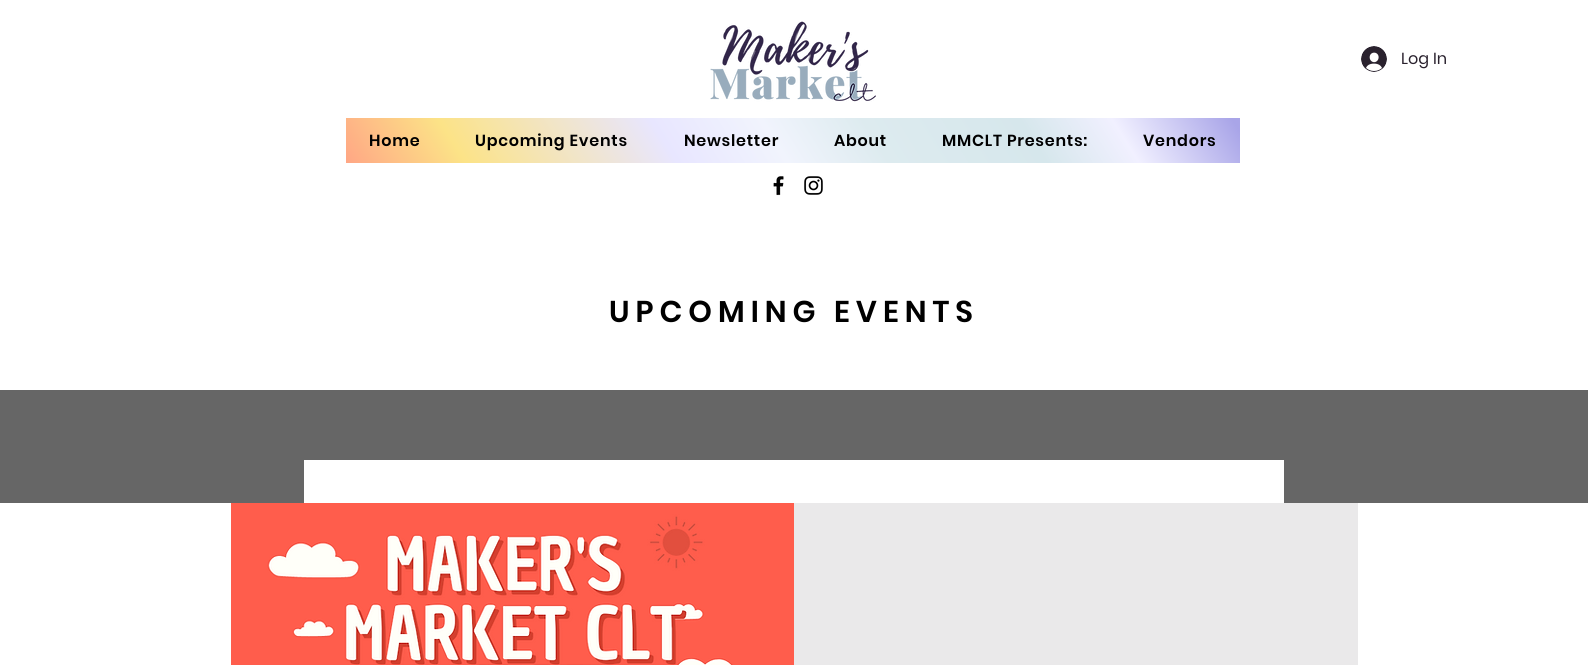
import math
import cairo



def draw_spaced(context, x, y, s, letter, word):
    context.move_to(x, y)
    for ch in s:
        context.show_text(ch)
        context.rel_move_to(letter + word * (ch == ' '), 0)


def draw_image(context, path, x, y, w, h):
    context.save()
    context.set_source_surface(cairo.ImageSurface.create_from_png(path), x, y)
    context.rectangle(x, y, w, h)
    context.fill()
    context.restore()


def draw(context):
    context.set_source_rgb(1, 1, 1)
    context.paint()
    draw_image(context, "images/1.png", 710, 21, 166, 81)
    draw_image(context, "images/2.png", 1361, 46, 26, 26)
    gradient = cairo.LinearGradient(461, 348, 1125, -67)
    gradient.add_color_stop_rgba(0, 1, 166 / 255, 133 / 255, 1)
    gradient.add_color_stop_rgba(0.13, 252 / 255, 227 / 255, 135 / 255, 1)
    gradient.add_color_stop_rgba(0.36, 232 / 255, 230 / 255, 1, 1)
    gradient.add_color_stop_rgba(0.48, 241 / 255, 244 / 255, 253 / 255, 1)
    gradient.add_color_stop_rgba(0.59, 221 / 255, 235 / 255, 239 / 255, 1)
    gradient.add_color_stop_rgba(0.76, 214 / 255, 231 / 255, 236 / 255, 1)
    gradient.add_color_stop_rgba(0.86, 241 / 255, 240 / 255, 1, 1)
    gradient.add_color_stop_rgba(0.99, 169 / 255, 165 / 255, 232 / 255, 1)
    context.set_source(gradient)
    context.rectangle(346, 118, 894, 45)
    context.fill()
    draw_image(context, "images/3.png", 773, 176, 11, 20)
    draw_image(context, "images/4.png", 804, 176, 19, 19)
    context.set_source_rgb(102 / 255, 102 / 255, 102 / 255)
    context.rectangle(0, 390, 1588, 113)
    context.fill()
    context.set_source_rgb(1, 1, 1)
    context.rectangle(304, 460, 980, 43)
    context.fill()
    draw_image(context, "images/5.png", 231, 503, 563, 162)
    context.set_source_rgb(234 / 255, 233 / 255, 234 / 255)
    context.rectangle(794, 503, 564, 162)
    context.fill()
    context.select_font_face("Poppins")
    context.set_font_size(16)
    context.set_source_rgb(42 / 255, 34 / 255, 46 / 255)
    context.move_to(1401, 64)
    context.show_text("Log In")
    context.select_font_face("Poppins SemiBold")
    context.set_source_rgb(0, 0, 0)
    draw_spaced(context, 369, 146, "Home", 0.75, 0)
    draw_spaced(context, 475, 146, "Upcoming Events", 0.75, 0)
    draw_spaced(context, 684, 146, "Newsletter", 0.75, 0)
    draw_spaced(context, 834, 146, "About", 0.75, 0)
    draw_spaced(context, 942, 146, "MMCLT Presents:", 0.75, 0)
    draw_spaced(context, 1143, 146, "Vendors", 0.75, 0)
    context.set_font_size(30)
    draw_spaced(context, 609, 322, "UPCOMING EVENTS", 6, 0)


surface = cairo.ImageSurface(cairo.Format.RGB24, 1588, 665)
context = cairo.Context(surface)
options = cairo.FontOptions()
options.set_hint_metrics(cairo.HintMetrics.OFF)
options.set_hint_style(cairo.HintStyle.NONE)
context.set_font_options(options)
context.set_miter_limit(4)
draw(context)
surface.write_to_png("out.png")
